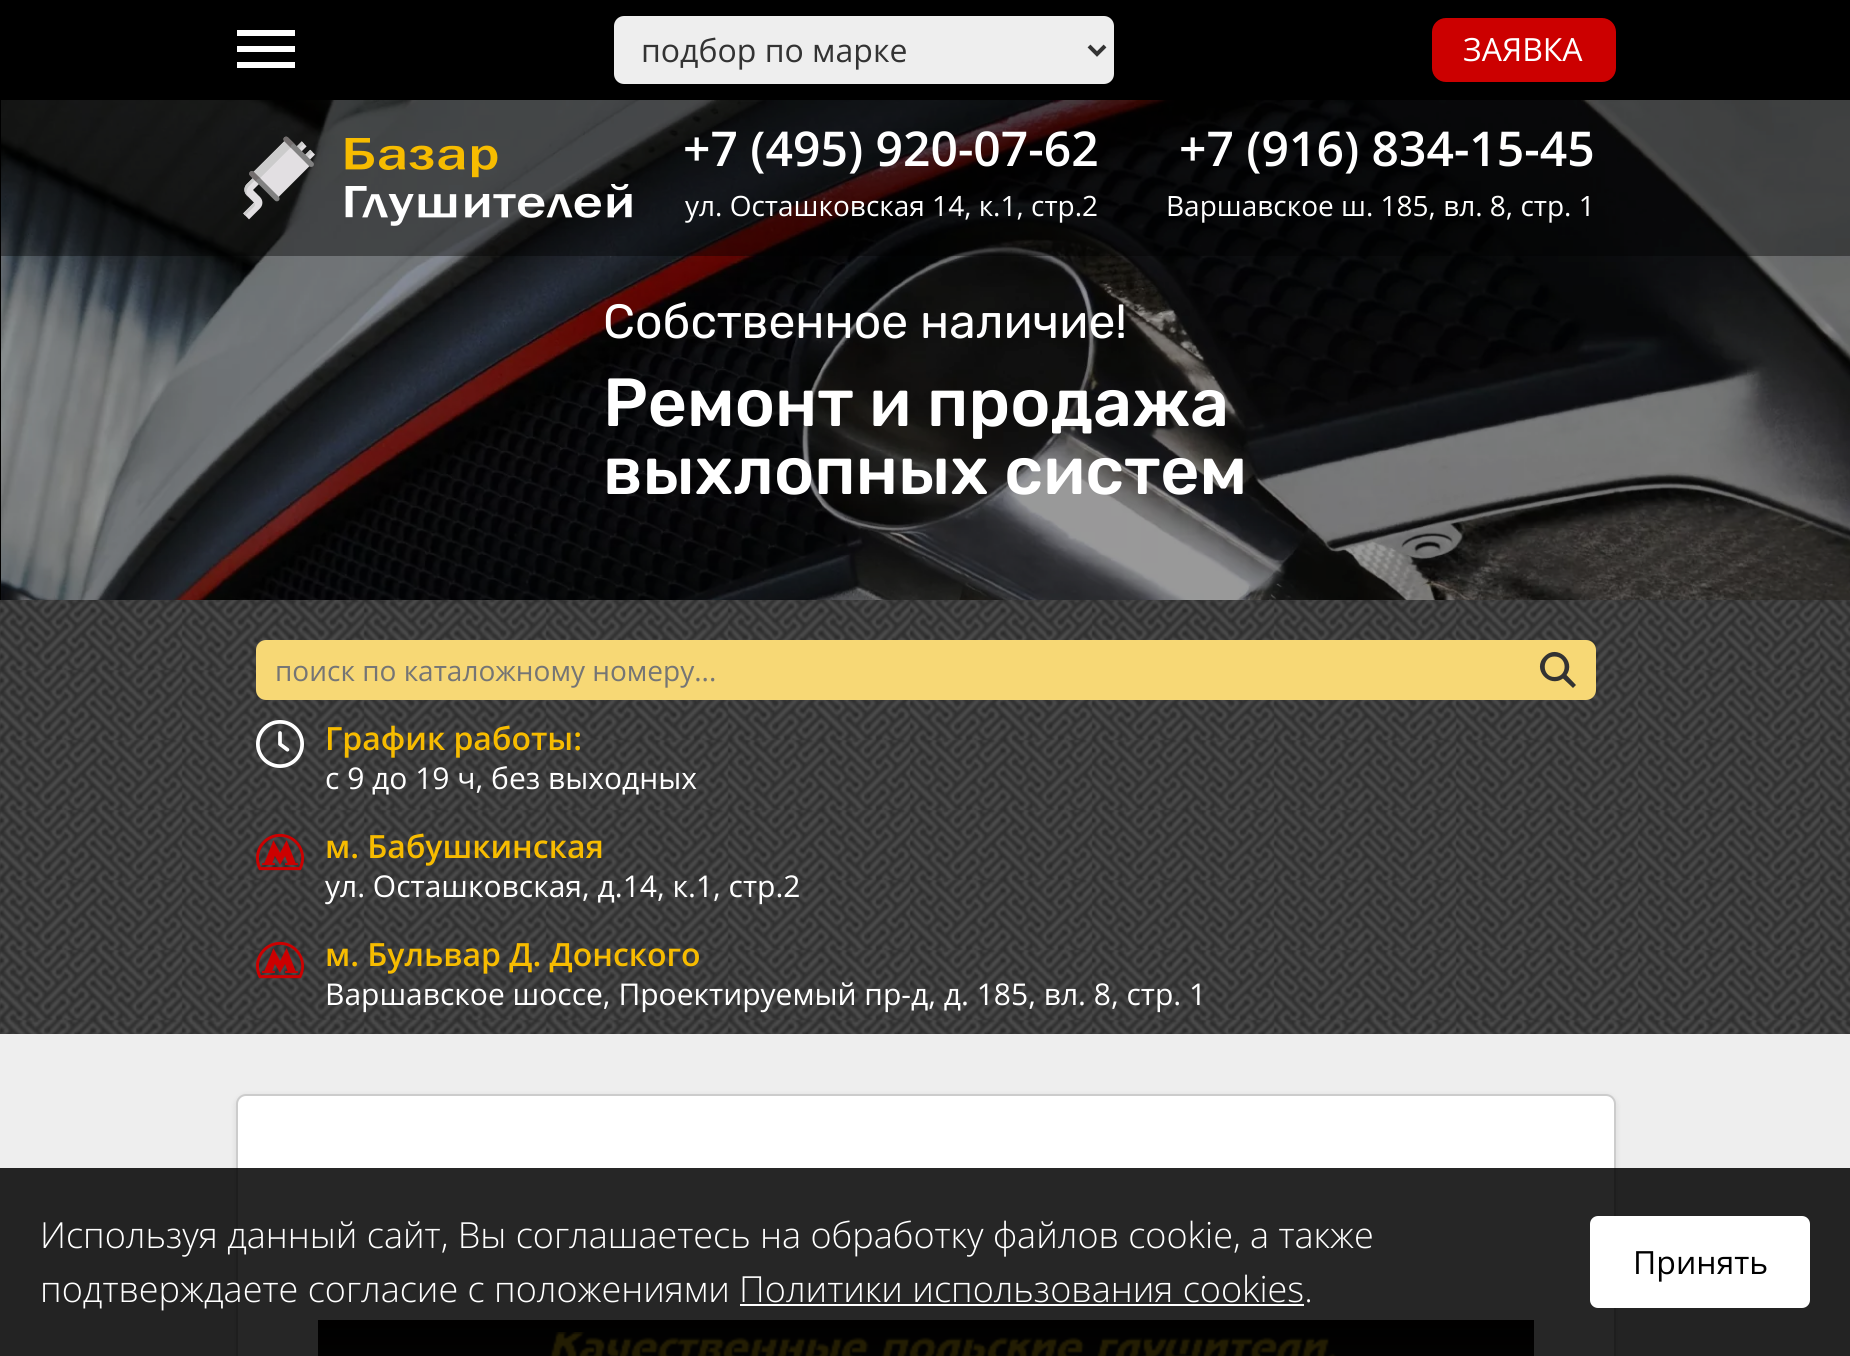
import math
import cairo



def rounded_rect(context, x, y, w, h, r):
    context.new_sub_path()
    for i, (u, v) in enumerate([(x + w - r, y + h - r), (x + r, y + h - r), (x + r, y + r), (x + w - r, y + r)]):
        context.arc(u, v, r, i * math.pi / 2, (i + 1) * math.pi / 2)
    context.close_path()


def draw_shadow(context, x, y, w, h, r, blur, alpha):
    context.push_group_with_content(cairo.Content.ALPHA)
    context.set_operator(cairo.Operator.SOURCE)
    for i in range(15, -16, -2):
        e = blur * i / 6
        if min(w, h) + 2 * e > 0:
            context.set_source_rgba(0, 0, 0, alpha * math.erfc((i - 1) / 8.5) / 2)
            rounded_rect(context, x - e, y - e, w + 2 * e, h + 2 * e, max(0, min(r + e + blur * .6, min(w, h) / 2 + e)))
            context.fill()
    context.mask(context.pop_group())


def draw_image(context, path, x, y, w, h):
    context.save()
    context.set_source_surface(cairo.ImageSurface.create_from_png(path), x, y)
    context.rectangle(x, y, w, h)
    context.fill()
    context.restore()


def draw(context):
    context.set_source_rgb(0, 0, 0)
    context.paint()
    context.set_source_rgb(1, 1, 1)
    context.new_path()
    context.move_to(237, 30)
    context.line_to(295, 30)
    context.line_to(295, 36)
    context.line_to(237, 36)
    context.close_path()
    context.move_to(237, 46)
    context.line_to(295, 46)
    context.line_to(295, 52)
    context.line_to(237, 52)
    context.close_path()
    context.move_to(237, 62)
    context.line_to(295, 62)
    context.line_to(295, 68)
    context.line_to(237, 68)
    context.close_path()
    context.fill()
    context.set_source_rgb(238 / 255, 238 / 255, 238 / 255)
    rounded_rect(context, 614, 16, 500, 68, 10)
    context.fill()
    context.new_path()
    context.move_to(1089, 46)
    context.line_to(1097, 54)
    context.line_to(1105, 46)
    context.set_source_rgb(51 / 255, 51 / 255, 51 / 255)
    context.set_line_width(4)
    context.stroke()
    context.set_source_rgb(204 / 255, 0, 0)
    rounded_rect(context, 1433, 19, 182, 62, 13)
    context.fill_preserve()
    context.set_line_width(2)
    context.stroke()
    draw_image(context, "images/2.png", 1, 100, 1849, 500)
    context.set_source_rgba(0, 0, 0, 0.4)
    context.rectangle(1, 100, 1849, 156)
    context.fill()
    draw_image(context, "images/1.png", 243, 136, 389, 90)
    draw_image(context, "images/3.png", 0, 600, 1850, 434)
    context.set_source_rgb(247 / 255, 216 / 255, 117 / 255)
    rounded_rect(context, 256, 640, 1340, 60, 10)
    context.fill()
    context.set_source_rgb(51 / 255, 51 / 255, 51 / 255)
    context.new_path()
    context.move_to(1566.5, 675)
    context.curve_to(1576.5, 661, 1557, 643.5, 1544.5, 656.5)
    context.curve_to(1531.5, 669, 1549, 688.5, 1563, 678.5)
    context.line_to(1573, 688)
    context.line_to(1576, 685)
    context.close_path()
    context.move_to(1554.5, 677)
    context.curve_to(1541.5, 677, 1541.5, 656.5, 1554.5, 656.5)
    context.curve_to(1568, 656.5, 1568, 677, 1554.5, 677)
    context.close_path()
    context.fill()
    draw_image(context, "images/4.png", 256, 720, 48, 48)
    draw_image(context, "images/5.png", 256, 833, 48, 38)
    draw_image(context, "images/6.png", 256, 941, 48, 38)
    context.set_source_rgb(238 / 255, 238 / 255, 238 / 255)
    context.rectangle(0, 1034, 1850, 322)
    context.fill()
    context.set_source_rgb(0, 0, 0)
    draw_shadow(context, 236, 1096, 1380, 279, 10, 3, 0.1)
    context.set_source_rgb(1, 1, 1)
    rounded_rect(context, 237, 1095, 1378, 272, 9)
    context.fill_preserve()
    context.set_source_rgb(204 / 255, 204 / 255, 204 / 255)
    context.stroke()
    draw_image(context, "images/7.png", 318, 1320, 1216, 36)
    draw_image(context, "images/8.png", 549, 1332, 788, 24)
    context.set_source_rgba(0, 0, 0, 0.85)
    context.rectangle(0, 1168, 1850, 188)
    context.fill()
    context.set_source_rgb(1, 1, 1)
    context.rectangle(740, 1304, 564, 2)
    context.fill()
    rounded_rect(context, 1591, 1217, 218, 90, 7)
    context.fill_preserve()
    context.stroke()
    context.select_font_face("Open Sans")
    context.set_font_size(32)
    context.set_source_rgb(51 / 255, 51 / 255, 51 / 255)
    context.move_to(641, 62)
    context.show_text("подбор по марке")
    context.set_source_rgb(1, 1, 1)
    context.move_to(1463, 61)
    context.show_text("ЗАЯВКА")
    context.select_font_face("Open Sans SemiBold")
    context.set_font_size(48)
    context.move_to(683, 166)
    context.show_text("+7 (495) 920-07-62")
    context.select_font_face("Open Sans")
    context.set_font_size(28)
    context.move_to(685, 216)
    context.show_text("ул. Осташковская 14, к.1, стр.2")
    context.select_font_face("Open Sans SemiBold")
    context.set_font_size(48)
    context.move_to(1179, 166)
    context.show_text("+7 (916) 834-15-45")
    context.select_font_face("Open Sans")
    context.set_font_size(28)
    context.move_to(1166, 216)
    context.show_text("Варшавское ш. 185, вл. 8, стр. 1")
    context.select_font_face("Rubik")
    context.set_font_size(48)
    context.move_to(603, 338)
    context.show_text("Собственное наличие!")
    context.select_font_face("Rubik Medium")
    context.set_font_size(68)
    context.move_to(603, 426)
    context.show_text("Ремонт и продажа")
    context.move_to(603, 494)
    context.show_text("выхлопных систем")
    context.select_font_face("Open Sans")
    context.set_font_size(28)
    context.set_source_rgb(117 / 255, 117 / 255, 117 / 255)
    context.move_to(275, 681)
    context.show_text("поиск по каталожному номеру...")
    context.select_font_face("Open Sans SemiBold")
    context.set_font_size(32)
    context.set_source_rgb(247 / 255, 188 / 255, 0)
    context.move_to(325, 750)
    context.show_text("График работы:")
    context.select_font_face("Open Sans")
    context.set_font_size(30)
    context.set_source_rgb(1, 1, 1)
    context.move_to(325, 789)
    context.show_text("с 9 до 19 ч, без выходных")
    context.select_font_face("Open Sans SemiBold")
    context.set_font_size(32)
    context.set_source_rgb(247 / 255, 188 / 255, 0)
    context.move_to(325, 858)
    context.show_text("м. Бабушкинская")
    context.select_font_face("Open Sans")
    context.set_font_size(30)
    context.set_source_rgb(1, 1, 1)
    context.move_to(325, 897)
    context.show_text("ул. Осташковская, д.14, к.1, стр.2")
    context.select_font_face("Open Sans SemiBold")
    context.set_font_size(32)
    context.set_source_rgb(247 / 255, 188 / 255, 0)
    context.move_to(325, 966)
    context.show_text("м. Бульвар Д. Донского")
    context.select_font_face("Open Sans")
    context.set_font_size(30)
    context.set_source_rgb(1, 1, 1)
    context.move_to(325, 1005)
    context.show_text("Варшавское шоссе, Проектируемый пр-д, д. 185, вл. 8, стр. 1")
    context.select_font_face("Open Sans Light")
    context.set_font_size(36)
    context.move_to(40, 1248)
    context.show_text("Используя данный сайт, Вы соглашаетесь на обработку файлов cookie, а также")
    context.move_to(40, 1302)
    context.show_text("подтверждаете согласие с положениями Политики использования cookies.")
    context.select_font_face("Open Sans")
    context.set_font_size(32)
    context.set_source_rgb(0, 0, 0)
    context.move_to(1633, 1274)
    context.show_text("Принять")


surface = cairo.ImageSurface(cairo.Format.RGB24, 1850, 1356)
context = cairo.Context(surface)
options = cairo.FontOptions()
options.set_hint_metrics(cairo.HintMetrics.OFF)
options.set_hint_style(cairo.HintStyle.NONE)
context.set_font_options(options)
context.set_miter_limit(4)
draw(context)
surface.write_to_png("out.png")
